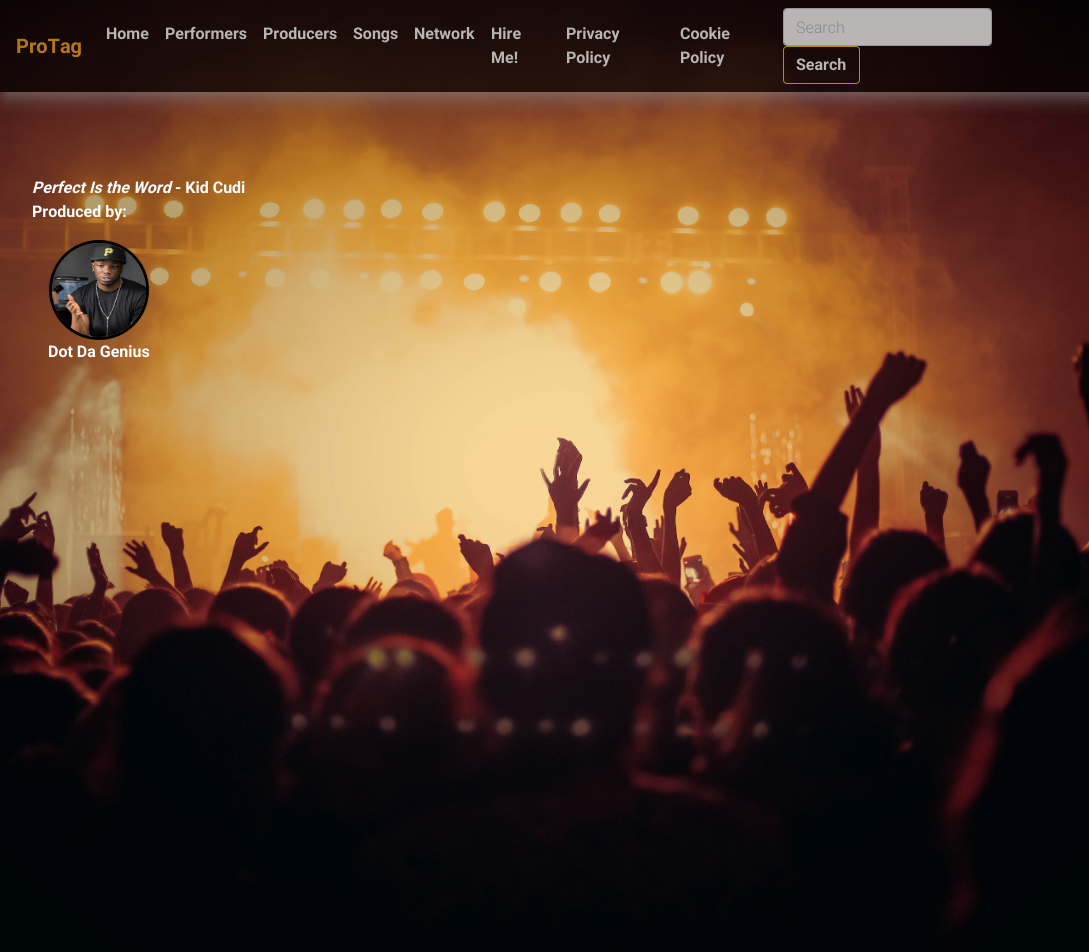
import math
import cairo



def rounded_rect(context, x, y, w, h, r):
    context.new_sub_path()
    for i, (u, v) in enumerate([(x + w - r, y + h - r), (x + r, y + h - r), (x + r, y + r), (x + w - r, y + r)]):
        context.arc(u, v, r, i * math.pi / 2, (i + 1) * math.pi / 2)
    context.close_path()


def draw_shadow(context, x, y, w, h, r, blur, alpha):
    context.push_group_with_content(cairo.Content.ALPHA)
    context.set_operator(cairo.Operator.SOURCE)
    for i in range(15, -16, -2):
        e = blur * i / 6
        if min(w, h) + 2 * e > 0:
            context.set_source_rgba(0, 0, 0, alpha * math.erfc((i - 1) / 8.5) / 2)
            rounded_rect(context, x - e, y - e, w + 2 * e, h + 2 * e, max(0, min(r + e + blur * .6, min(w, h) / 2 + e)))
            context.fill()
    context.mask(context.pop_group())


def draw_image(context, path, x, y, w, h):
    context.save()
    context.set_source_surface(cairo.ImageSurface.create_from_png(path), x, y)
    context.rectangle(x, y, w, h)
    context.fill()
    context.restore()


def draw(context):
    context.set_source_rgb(1, 1, 1)
    context.paint()
    draw_image(context, "images/1.png", 0, 0, 1089, 952)
    context.save()
    context.rectangle(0, 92, 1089, 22)
    context.clip()
    context.set_source_rgb(136 / 255, 136 / 255, 136 / 255)
    draw_shadow(context, 5, 5, 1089, 92, 0, 9, 0.7)
    context.restore()
    context.set_source_rgba(0, 0, 0, 0.7)
    context.rectangle(0, 0, 1089, 92)
    context.fill()
    context.set_source_rgba(1, 1, 1, 0.7)
    rounded_rect(context, 784, 9, 207, 36, 3)
    context.fill()
    rounded_rect(context, 783.5, 8.5, 208, 37, 3.5)
    context.set_source_rgba(206 / 255, 212 / 255, 218 / 255, 0.7)
    context.set_line_width(1)
    context.stroke()
    rounded_rect(context, 783.5, 46.5, 76, 37, 3.5)
    context.set_source_rgba(1, 193 / 255, 7 / 255, 0.7)
    context.stroke()
    context.arc(99, 290, 48.5, 0, 2 * math.pi)
    context.set_source_rgb(0, 0, 0)
    context.set_line_width(3)
    context.stroke()
    draw_image(context, "images/2.png", 52, 243, 94, 94)
    context.select_font_face("Roboto", cairo.FontSlant.NORMAL, cairo.FontWeight.BOLD)
    context.set_font_size(20)
    context.set_source_rgb(181 / 255, 120 / 255, 17 / 255)
    context.move_to(16, 53)
    context.show_text("ProTag")
    context.set_font_size(16)
    context.set_source_rgb(185 / 255, 181 / 255, 181 / 255)
    context.move_to(106, 39)
    context.show_text("Home")
    context.move_to(165, 39)
    context.show_text("Performers")
    context.move_to(263, 39)
    context.show_text("Producers")
    context.move_to(353, 39)
    context.show_text("Songs")
    context.move_to(414, 39)
    context.show_text("Network")
    context.move_to(491, 39)
    context.show_text("Hire")
    context.move_to(491, 63)
    context.show_text("Me!")
    context.move_to(566, 39)
    context.show_text("Privacy")
    context.move_to(566, 63)
    context.show_text("Policy")
    context.move_to(680, 39)
    context.show_text("Cookie")
    context.move_to(680, 63)
    context.show_text("Policy")
    context.select_font_face("Roboto Light")
    context.set_source_rgb(131 / 255, 136 / 255, 142 / 255)
    context.move_to(796, 33)
    context.show_text("Search")
    context.select_font_face("Roboto", cairo.FontSlant.NORMAL, cairo.FontWeight.BOLD)
    context.set_source_rgb(185 / 255, 181 / 255, 181 / 255)
    context.move_to(796, 70)
    context.show_text("Search")
    context.select_font_face("Roboto", cairo.FontSlant.ITALIC, cairo.FontWeight.BOLD)
    context.set_source_rgb(1, 1, 1)
    context.move_to(32, 193)
    context.show_text("Perfect Is the Word")
    context.select_font_face("Roboto", cairo.FontSlant.NORMAL, cairo.FontWeight.BOLD)
    context.move_to(175, 193)
    context.show_text("- Kid Cudi")
    context.move_to(32, 217)
    context.show_text("Produced by:")
    context.move_to(48, 357)
    context.show_text("Dot Da Genius")


surface = cairo.ImageSurface(cairo.Format.RGB24, 1089, 952)
context = cairo.Context(surface)
options = cairo.FontOptions()
options.set_hint_metrics(cairo.HintMetrics.OFF)
options.set_hint_style(cairo.HintStyle.NONE)
context.set_font_options(options)
context.set_miter_limit(4)
draw(context)
surface.write_to_png("out.png")
